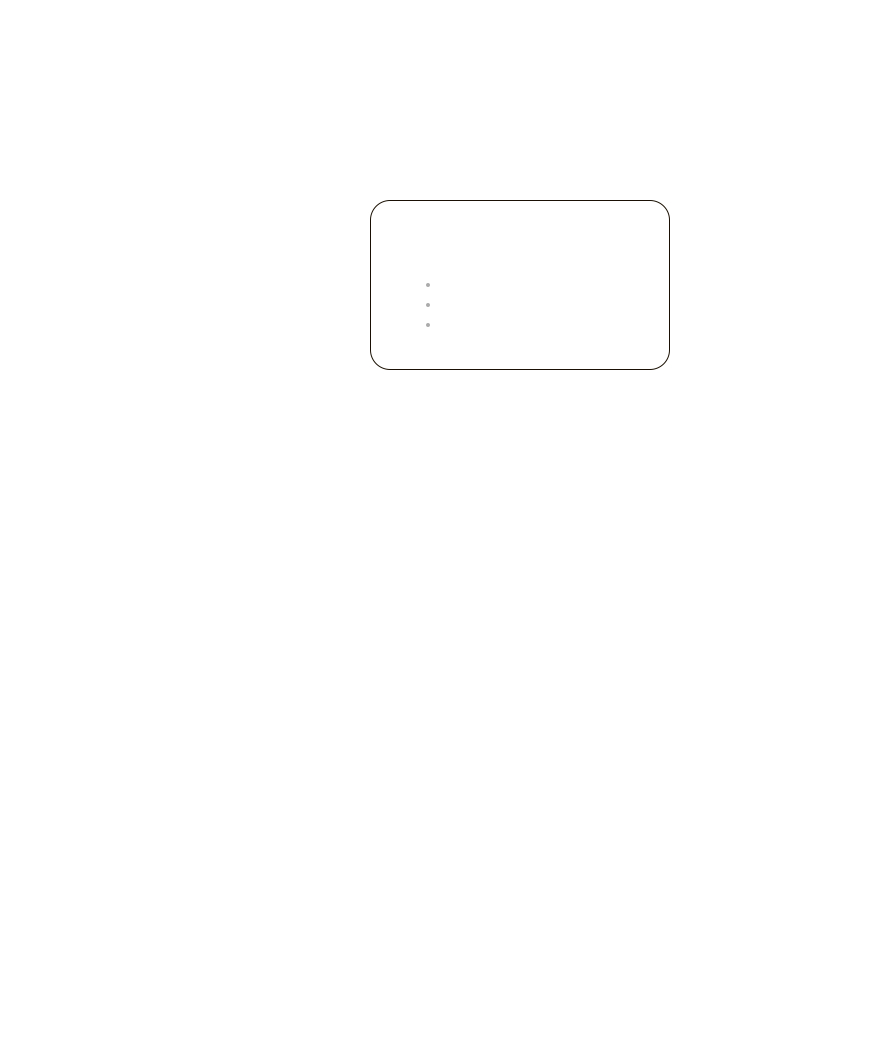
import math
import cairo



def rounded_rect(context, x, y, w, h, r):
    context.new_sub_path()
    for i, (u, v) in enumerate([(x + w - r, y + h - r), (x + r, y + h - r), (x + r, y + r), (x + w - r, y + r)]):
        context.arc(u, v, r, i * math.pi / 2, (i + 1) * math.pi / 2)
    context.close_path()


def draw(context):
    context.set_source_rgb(1, 1, 1)
    context.paint()
    rounded_rect(context, 370.5, 200.5, 299, 169, 19.5)
    context.set_source_rgb(26 / 255, 16 / 255, 3 / 255)
    context.set_line_width(1)
    context.stroke()
    context.set_source_rgb(171 / 255, 171 / 255, 171 / 255)
    context.arc(428, 285, 2, 0, 2 * math.pi)
    context.fill()
    context.arc(428, 305, 2, 0, 2 * math.pi)
    context.fill()
    context.arc(428, 325, 2, 0, 2 * math.pi)
    context.fill()


surface = cairo.ImageSurface(cairo.Format.RGB24, 881, 1049)
context = cairo.Context(surface)
options = cairo.FontOptions()
options.set_hint_metrics(cairo.HintMetrics.OFF)
options.set_hint_style(cairo.HintStyle.NONE)
context.set_font_options(options)
context.set_miter_limit(4)
draw(context)
surface.write_to_png("out.png")
